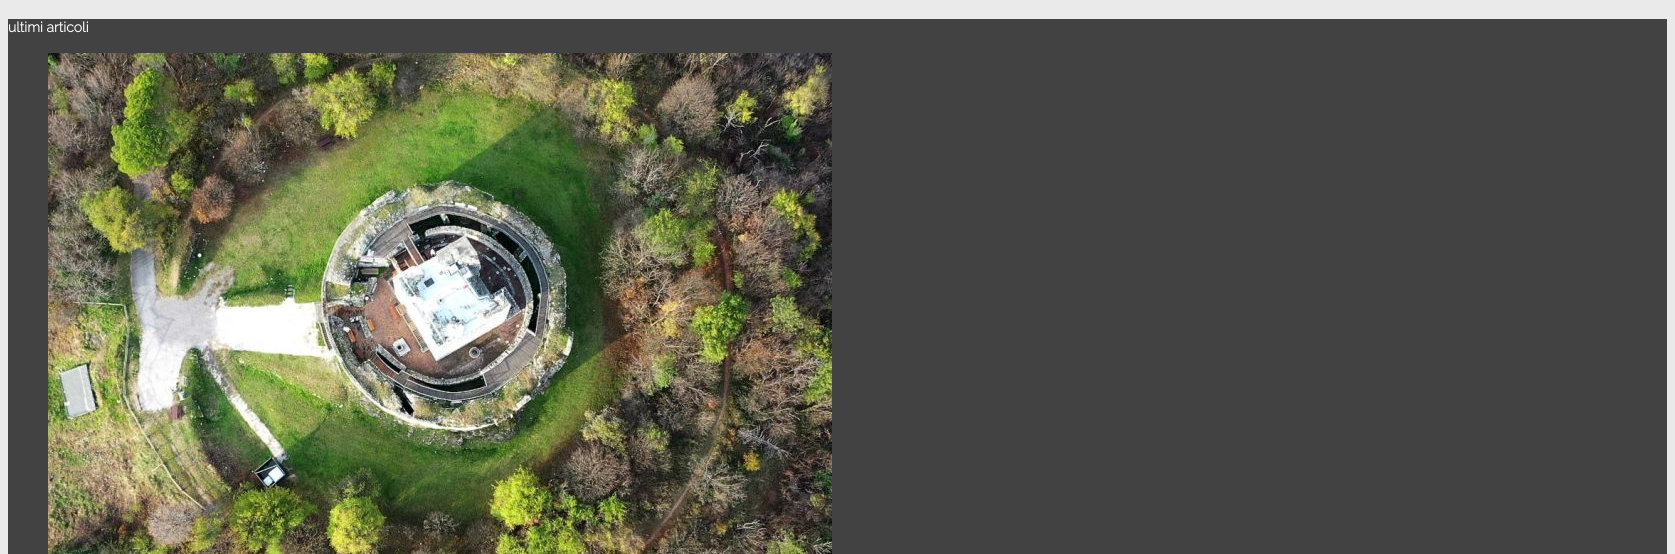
import math
import cairo



def draw_image(context, path, x, y, w, h):
    context.save()
    context.set_source_surface(cairo.ImageSurface.create_from_png(path), x, y)
    context.rectangle(x, y, w, h)
    context.fill()
    context.restore()


def draw(context):
    context.set_source_rgb(234 / 255, 234 / 255, 234 / 255)
    context.paint()
    context.set_source_rgb(66 / 255, 66 / 255, 66 / 255)
    context.rectangle(8, 19, 1659, 535)
    context.fill()
    draw_image(context, "images/1.png", 48, 53, 784, 501)
    context.select_font_face("Raleway", cairo.FontSlant.NORMAL, cairo.FontWeight.BOLD)
    context.set_font_size(14)
    context.set_source_rgb(1, 1, 1)
    context.move_to(8, 32)
    context.show_text("ultimi articoli")


surface = cairo.ImageSurface(cairo.Format.RGB24, 1675, 554)
context = cairo.Context(surface)
options = cairo.FontOptions()
options.set_hint_metrics(cairo.HintMetrics.OFF)
options.set_hint_style(cairo.HintStyle.NONE)
context.set_font_options(options)
context.set_miter_limit(4)
draw(context)
surface.write_to_png("out.png")
